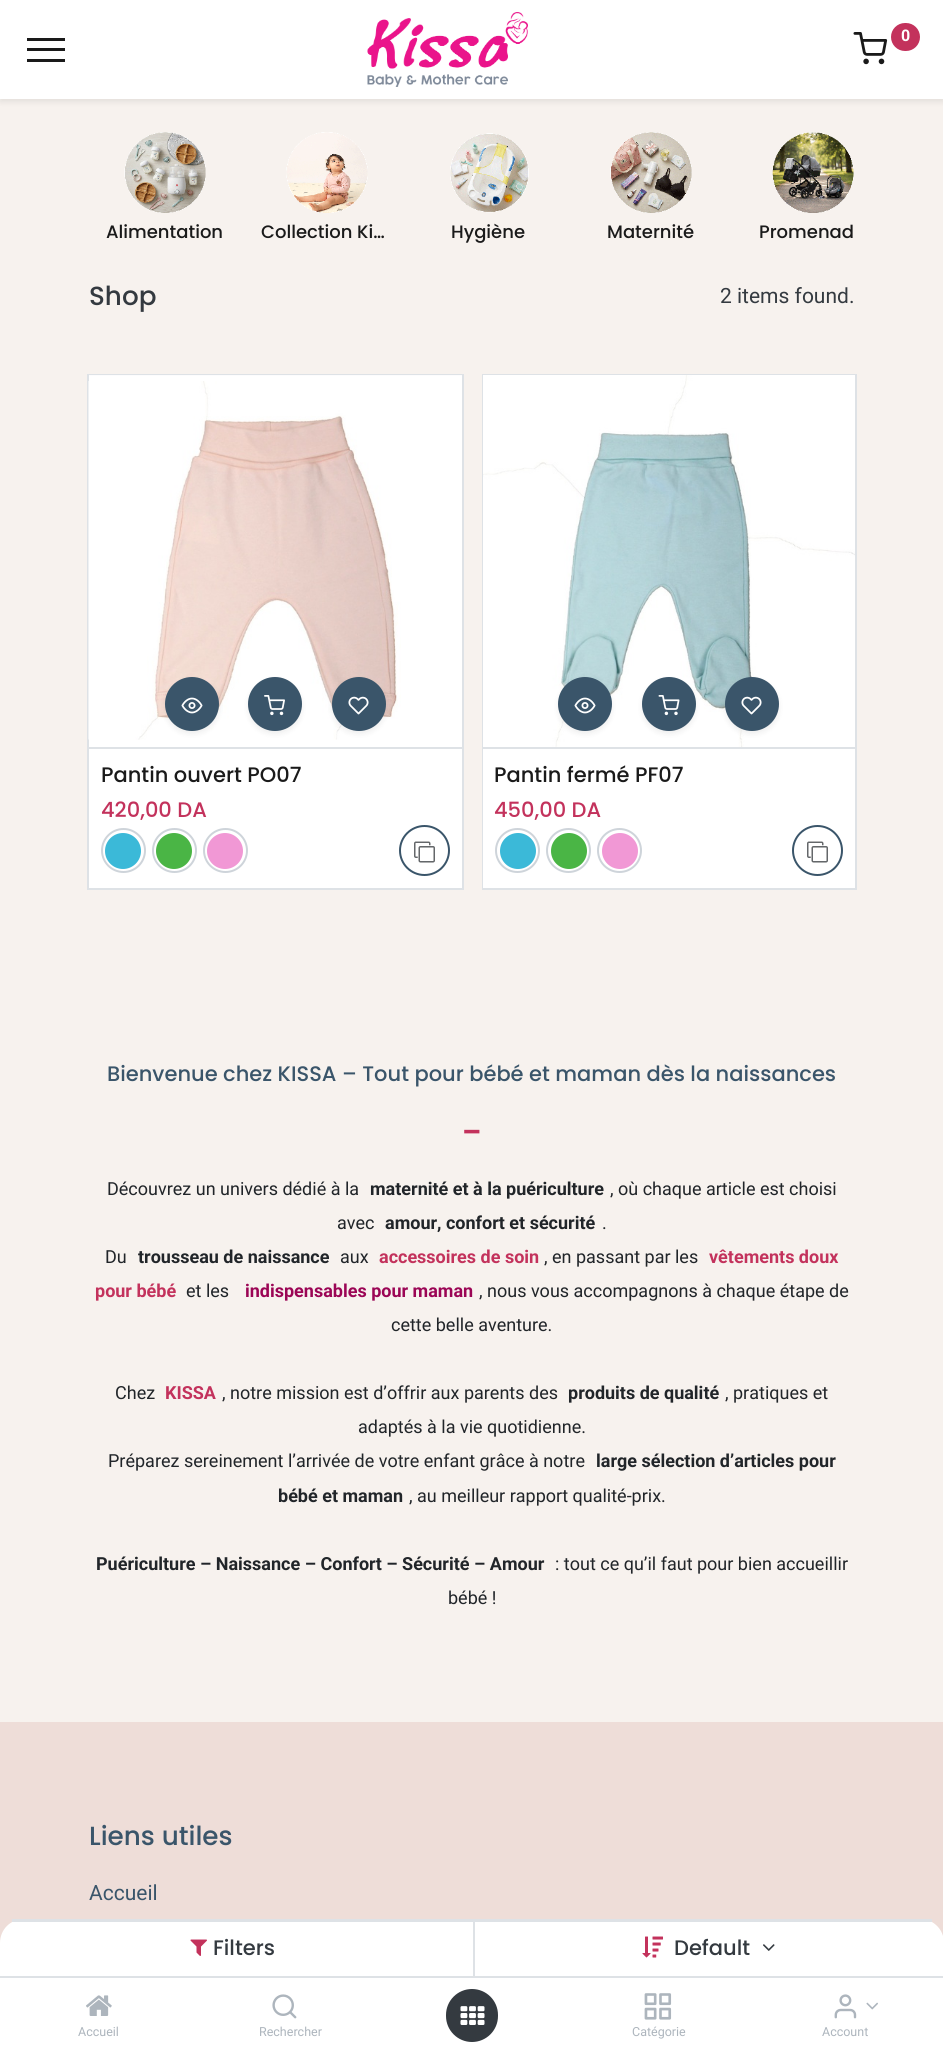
import math
import cairo



def rounded_rect(context, x, y, w, h, r):
    context.new_sub_path()
    for i, (u, v) in enumerate([(x + w - r, y + h - r), (x + r, y + h - r), (x + r, y + r), (x + w - r, y + r)]):
        context.arc(u, v, r, i * math.pi / 2, (i + 1) * math.pi / 2)
    context.close_path()


def draw_shadow(context, x, y, w, h, r, blur, alpha):
    context.push_group_with_content(cairo.Content.ALPHA)
    context.set_operator(cairo.Operator.SOURCE)
    for i in range(15, -16, -2):
        e = blur * i / 6
        if min(w, h) + 2 * e > 0:
            context.set_source_rgba(0, 0, 0, alpha * math.erfc((i - 1) / 8.5) / 2)
            rounded_rect(context, x - e, y - e, w + 2 * e, h + 2 * e, max(0, min(r + e + blur * .6, min(w, h) / 2 + e)))
            context.fill()
    context.mask(context.pop_group())


def draw_image(context, path, x, y, w, h):
    context.save()
    context.set_source_surface(cairo.ImageSurface.create_from_png(path), x, y)
    context.rectangle(x, y, w, h)
    context.fill()
    context.restore()


def draw(context):
    context.set_source_rgb(247 / 255, 242 / 255, 238 / 255)
    context.paint()
    context.set_source_rgb(0, 0, 0)
    draw_shadow(context, 0, 3, 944, 99, 0, 3, 0.08)
    context.set_source_rgb(1, 1, 1)
    context.rectangle(0, 0, 943, 99)
    context.fill()
    draw_image(context, "images/1.png", 367, 12, 161, 75)
    draw_image(context, "images/2.png", 853, 32, 35, 33)
    context.set_source_rgb(195 / 255, 50 / 255, 92 / 255)
    rounded_rect(context, 891, 23, 29, 28, 14)
    context.fill()
    context.set_source_rgb(26 / 255, 26 / 255, 26 / 255)
    context.rectangle(27, 38, 38, 3)
    context.fill()
    context.rectangle(27, 48, 38, 3)
    context.fill()
    context.rectangle(27, 59, 38, 3)
    context.fill()
    draw_image(context, "images/3.png", 124, 132, 82, 81)
    draw_image(context, "images/4.png", 286, 132, 82, 81)
    draw_image(context, "images/5.png", 450, 133, 79, 80)
    draw_image(context, "images/6.png", 610, 132, 82, 81)
    draw_image(context, "images/7.png", 772, 132, 82, 81)
    context.set_source_rgb(1, 1, 1)
    context.rectangle(88, 375, 375, 514)
    context.fill_preserve()
    context.set_source_rgb(222 / 255, 226 / 255, 230 / 255)
    context.stroke()
    context.set_source_rgba(1, 1, 1, 0.9)
    context.rectangle(89, 375, 373, 1)
    context.fill()
    draw_image(context, "images/8.png", 88, 381, 313, 359)
    context.set_source_rgb(222 / 255, 226 / 255, 230 / 255)
    context.rectangle(89, 747, 373, 2)
    context.fill()
    context.set_source_rgb(0, 0, 0)
    draw_shadow(context, 165, 680, 54, 54, 27, 3, 0.07)
    context.set_source_rgb(58 / 255, 85 / 255, 106 / 255)
    context.arc(192, 704, 26, 0, 2 * math.pi)
    context.fill_preserve()
    context.stroke()
    draw_image(context, "images/9.png", 181, 697, 22, 17)
    context.set_source_rgb(0, 0, 0)
    draw_shadow(context, 248, 680, 54, 54, 27, 3, 0.07)
    context.set_source_rgb(58 / 255, 85 / 255, 106 / 255)
    context.arc(275, 704, 26, 0, 2 * math.pi)
    context.fill_preserve()
    context.stroke()
    draw_image(context, "images/10.png", 264, 695, 21, 21)
    context.set_source_rgb(0, 0, 0)
    draw_shadow(context, 332, 680, 54, 54, 27, 3, 0.07)
    context.set_source_rgb(58 / 255, 85 / 255, 106 / 255)
    context.arc(359, 704, 26, 0, 2 * math.pi)
    context.fill_preserve()
    context.stroke()
    draw_image(context, "images/11.png", 348, 696, 21, 19)
    context.arc(123.5, 850.5, 21.5, 0, 2 * math.pi)
    context.set_source_rgb(206 / 255, 212 / 255, 218 / 255)
    context.stroke()
    context.set_source_rgb(59 / 255, 185 / 255, 216 / 255)
    context.arc(123, 851, 18, 0, 2 * math.pi)
    context.fill()
    context.arc(174.5, 850.5, 21.5, 0, 2 * math.pi)
    context.set_source_rgb(206 / 255, 212 / 255, 218 / 255)
    context.stroke()
    context.set_source_rgb(74 / 255, 181 / 255, 69 / 255)
    context.arc(174, 851, 18, 0, 2 * math.pi)
    context.fill()
    context.arc(225.5, 850.5, 21.5, 0, 2 * math.pi)
    context.set_source_rgb(206 / 255, 212 / 255, 218 / 255)
    context.stroke()
    context.set_source_rgb(241 / 255, 152 / 255, 213 / 255)
    context.arc(225, 851, 18, 0, 2 * math.pi)
    context.fill()
    context.arc(424.5, 850.5, 24.5, 0, 2 * math.pi)
    context.set_source_rgb(58 / 255, 85 / 255, 106 / 255)
    context.stroke()
    draw_image(context, "images/12.png", 414, 841, 21, 22)
    context.rectangle(483, 375, 373, 514)
    context.set_source_rgb(222 / 255, 226 / 255, 230 / 255)
    context.stroke()
    draw_image(context, "images/13.png", 483, 375, 372, 372)
    context.set_source_rgb(1, 1, 1)
    context.rectangle(483, 749, 372, 139)
    context.fill()
    context.set_source_rgb(222 / 255, 226 / 255, 230 / 255)
    context.rectangle(483, 747, 372, 2)
    context.fill()
    context.set_source_rgb(0, 0, 0)
    draw_shadow(context, 558, 680, 54, 54, 27, 3, 0.07)
    context.set_source_rgb(58 / 255, 85 / 255, 106 / 255)
    context.arc(585, 704, 26, 0, 2 * math.pi)
    context.fill_preserve()
    context.stroke()
    draw_image(context, "images/9.png", 574, 697, 22, 17)
    context.set_source_rgb(0, 0, 0)
    draw_shadow(context, 642, 680, 54, 54, 27, 3, 0.07)
    context.set_source_rgb(58 / 255, 85 / 255, 106 / 255)
    context.arc(669, 704, 26, 0, 2 * math.pi)
    context.fill_preserve()
    context.stroke()
    draw_image(context, "images/14.png", 658, 695, 22, 21)
    context.set_source_rgb(0, 0, 0)
    draw_shadow(context, 725, 680, 54, 54, 27, 3, 0.07)
    context.set_source_rgb(58 / 255, 85 / 255, 106 / 255)
    context.arc(752, 704, 26, 0, 2 * math.pi)
    context.fill_preserve()
    context.stroke()
    draw_image(context, "images/11.png", 741, 696, 21, 19)
    context.arc(517.5, 850.5, 21.5, 0, 2 * math.pi)
    context.set_source_rgb(206 / 255, 212 / 255, 218 / 255)
    context.stroke()
    context.set_source_rgb(59 / 255, 185 / 255, 216 / 255)
    context.arc(518, 851, 18, 0, 2 * math.pi)
    context.fill()
    context.arc(568.5, 850.5, 21.5, 0, 2 * math.pi)
    context.set_source_rgb(206 / 255, 212 / 255, 218 / 255)
    context.stroke()
    context.set_source_rgb(74 / 255, 181 / 255, 69 / 255)
    context.arc(569, 851, 18, 0, 2 * math.pi)
    context.fill()
    context.arc(619.5, 850.5, 21.5, 0, 2 * math.pi)
    context.set_source_rgb(206 / 255, 212 / 255, 218 / 255)
    context.stroke()
    context.set_source_rgb(241 / 255, 152 / 255, 213 / 255)
    context.arc(620, 851, 18, 0, 2 * math.pi)
    context.fill()
    context.arc(817.5, 850.5, 24.5, 0, 2 * math.pi)
    context.set_source_rgb(58 / 255, 85 / 255, 106 / 255)
    context.stroke()
    draw_image(context, "images/12.png", 807, 841, 21, 22)
    context.set_source_rgb(238 / 255, 221 / 255, 216 / 255)
    context.rectangle(0, 1722, 943, 221)
    context.fill()
    context.set_source_rgb(1, 1, 1)
    context.new_path()
    context.move_to(24, 1919)
    context.line_to(920, 1919)
    context.curve_to(933.5, 1919, 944, 1929.5, 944, 1943)
    context.line_to(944, 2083)
    context.line_to(0, 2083)
    context.line_to(0, 1943)
    context.curve_to(0, 1929.5, 10.5, 1919, 24, 1919)
    context.close_path()
    context.fill()
    context.set_source_rgb(222 / 255, 226 / 255, 230 / 255)
    context.rectangle(12, 1919, 920, 3)
    context.fill()
    context.rectangle(0, 1976, 943, 2)
    context.fill()
    draw_image(context, "images/15.png", 190, 1939, 17, 17)
    context.rectangle(473, 1922, 2, 54)
    context.fill()
    draw_image(context, "images/16.png", 642, 1936, 21, 22)
    draw_image(context, "images/17.png", 763, 1944, 12, 7)
    draw_image(context, "images/18.png", 86, 1995, 26, 21)
    draw_image(context, "images/19.png", 272, 1994, 25, 25)
    context.set_source_rgb(52 / 255, 58 / 255, 64 / 255)
    rounded_rect(context, 446, 1989, 52, 53, 26)
    context.fill()
    draw_image(context, "images/20.png", 460, 2006, 25, 19)
    draw_image(context, "images/21.png", 644, 1993, 28, 27)
    draw_image(context, "images/22.png", 834, 1994, 23, 25)
    draw_image(context, "images/23.png", 866, 2002, 12, 8)
    context.select_font_face("Roboto", cairo.FontSlant.NORMAL, cairo.FontWeight.BOLD)
    context.set_font_size(16)
    context.set_source_rgb(1, 1, 1)
    context.move_to(901, 41)
    context.show_text("0")
    context.select_font_face("Poppins Medium")
    context.set_font_size(18)
    context.set_source_rgb(26 / 255, 26 / 255, 26 / 255)
    context.move_to(106, 238)
    context.show_text("Alimentation")
    context.move_to(261, 238)
    context.show_text("Collection Ki…")
    context.move_to(451, 238)
    context.show_text("Hygiène")
    context.move_to(607, 238)
    context.show_text("Maternité")
    context.move_to(759, 238)
    context.show_text("Promenad")
    context.set_font_size(26.25)
    context.set_source_rgb(52 / 255, 58 / 255, 64 / 255)
    context.move_to(89, 305)
    context.show_text("Shop")
    context.select_font_face("Roboto")
    context.set_font_size(21)
    context.move_to(720, 303)
    context.show_text("2 items found.")
    context.select_font_face("Poppins Medium")
    context.set_source_rgb(26 / 255, 26 / 255, 26 / 255)
    context.move_to(101, 782)
    context.show_text("Pantin ouvert PO07")
    context.set_source_rgb(195 / 255, 50 / 255, 92 / 255)
    context.move_to(101, 817)
    context.show_text("420,00 DA")
    context.set_source_rgb(26 / 255, 26 / 255, 26 / 255)
    context.move_to(494, 782)
    context.show_text("Pantin fermé PF07")
    context.set_source_rgb(195 / 255, 50 / 255, 92 / 255)
    context.move_to(494, 817)
    context.show_text("450,00 DA")
    context.set_source_rgb(58 / 255, 85 / 255, 106 / 255)
    context.move_to(107, 1081)
    context.show_text("Bienvenue chez KISSA – Tout pour bébé et maman dès la naissances")
    context.set_font_size(37)
    context.set_source_rgb(195 / 255, 50 / 255, 92 / 255)
    context.move_to(461, 1145)
    context.show_text("-")
    context.select_font_face("Roboto")
    context.set_font_size(18)
    context.set_source_rgb(33 / 255, 37 / 255, 41 / 255)
    context.move_to(107, 1195)
    context.show_text("Découvrez un univers dédié à la")
    context.select_font_face("Roboto", cairo.FontSlant.NORMAL, cairo.FontWeight.BOLD)
    context.move_to(370, 1195)
    context.show_text("maternité et à la puériculture")
    context.select_font_face("Roboto")
    context.move_to(610, 1195)
    context.show_text(", où chaque article est choisi")
    context.move_to(337, 1229)
    context.show_text("avec")
    context.select_font_face("Roboto", cairo.FontSlant.NORMAL, cairo.FontWeight.BOLD)
    context.move_to(385, 1229)
    context.show_text("amour, confort et sécurité")
    context.select_font_face("Roboto")
    context.move_to(602, 1229)
    context.show_text(".")
    context.move_to(105, 1263)
    context.show_text("Du")
    context.select_font_face("Roboto", cairo.FontSlant.NORMAL, cairo.FontWeight.BOLD)
    context.move_to(138, 1263)
    context.show_text("trousseau de naissance")
    context.select_font_face("Roboto")
    context.move_to(340, 1263)
    context.show_text("aux")
    context.select_font_face("Roboto", cairo.FontSlant.NORMAL, cairo.FontWeight.BOLD)
    context.set_source_rgb(195 / 255, 50 / 255, 92 / 255)
    context.move_to(379, 1263)
    context.show_text("accessoires de soin")
    context.select_font_face("Roboto")
    context.set_source_rgb(33 / 255, 37 / 255, 41 / 255)
    context.move_to(544, 1263)
    context.show_text(", en passant par les")
    context.select_font_face("Roboto", cairo.FontSlant.NORMAL, cairo.FontWeight.BOLD)
    context.set_source_rgb(195 / 255, 50 / 255, 92 / 255)
    context.move_to(709, 1263)
    context.show_text("vêtements doux")
    context.move_to(95, 1297)
    context.show_text("pour bébé")
    context.select_font_face("Roboto")
    context.set_source_rgb(33 / 255, 37 / 255, 41 / 255)
    context.move_to(186, 1297)
    context.show_text("et les")
    context.select_font_face("Roboto", cairo.FontSlant.NORMAL, cairo.FontWeight.BOLD)
    context.set_source_rgb(155 / 255, 5 / 255, 85 / 255)
    context.move_to(245, 1297)
    context.show_text("indispensables pour maman")
    context.select_font_face("Roboto")
    context.set_source_rgb(33 / 255, 37 / 255, 41 / 255)
    context.move_to(479, 1297)
    context.show_text(", nous vous accompagnons à chaque étape de")
    context.move_to(391, 1331)
    context.show_text("cette belle aventure.")
    context.move_to(115, 1399)
    context.show_text("Chez")
    context.select_font_face("Roboto", cairo.FontSlant.NORMAL, cairo.FontWeight.BOLD)
    context.set_source_rgb(195 / 255, 50 / 255, 92 / 255)
    context.move_to(165, 1399)
    context.show_text("KISSA")
    context.select_font_face("Roboto")
    context.set_source_rgb(33 / 255, 37 / 255, 41 / 255)
    context.move_to(222, 1399)
    context.show_text(", notre mission est d’offrir aux parents des")
    context.select_font_face("Roboto", cairo.FontSlant.NORMAL, cairo.FontWeight.BOLD)
    context.move_to(568, 1399)
    context.show_text("produits de qualité")
    context.select_font_face("Roboto")
    context.move_to(725, 1399)
    context.show_text(", pratiques et")
    context.move_to(358, 1433)
    context.show_text("adaptés à la vie quotidienne.")
    context.move_to(108, 1467)
    context.show_text("Préparez sereinement l’arrivée de votre enfant grâce à notre")
    context.select_font_face("Roboto", cairo.FontSlant.NORMAL, cairo.FontWeight.BOLD)
    context.move_to(596, 1467)
    context.show_text("large sélection d’articles pour")
    context.move_to(278, 1502)
    context.show_text("bébé et maman")
    context.select_font_face("Roboto")
    context.move_to(409, 1502)
    context.show_text(", au meilleur rapport qualité-prix.")
    context.select_font_face("Roboto", cairo.FontSlant.NORMAL, cairo.FontWeight.BOLD)
    context.move_to(96, 1570)
    context.show_text("Puériculture – Naissance – Confort – Sécurité – Amour")
    context.select_font_face("Roboto")
    context.move_to(555, 1570)
    context.show_text(": tout ce qu’il faut pour bien accueillir")
    context.move_to(448, 1604)
    context.show_text("bébé !")
    context.select_font_face("Poppins Medium")
    context.set_font_size(26.25)
    context.set_source_rgb(58 / 255, 85 / 255, 106 / 255)
    context.move_to(89, 1845)
    context.show_text("Liens utiles")
    context.select_font_face("Roboto")
    context.set_font_size(21)
    context.move_to(89, 1900)
    context.show_text("Accueil")
    context.select_font_face("Poppins Medium")
    context.set_source_rgb(52 / 255, 58 / 255, 64 / 255)
    context.move_to(213, 1955)
    context.show_text("Filters")
    context.move_to(674, 1955)
    context.show_text("Default")
    context.select_font_face("Roboto")
    context.set_font_size(12.5)
    context.set_source_rgb(173 / 255, 181 / 255, 189 / 255)
    context.move_to(78, 2036)
    context.show_text("Accueil")
    context.move_to(259, 2036)
    context.show_text("Rechercher")
    context.move_to(632, 2036)
    context.show_text("Catégorie")
    context.move_to(822, 2036)
    context.show_text("Account")


surface = cairo.ImageSurface(cairo.Format.RGB24, 943, 2059)
context = cairo.Context(surface)
options = cairo.FontOptions()
options.set_hint_metrics(cairo.HintMetrics.OFF)
options.set_hint_style(cairo.HintStyle.NONE)
context.set_font_options(options)
context.set_miter_limit(4)
draw(context)
surface.write_to_png("out.png")
